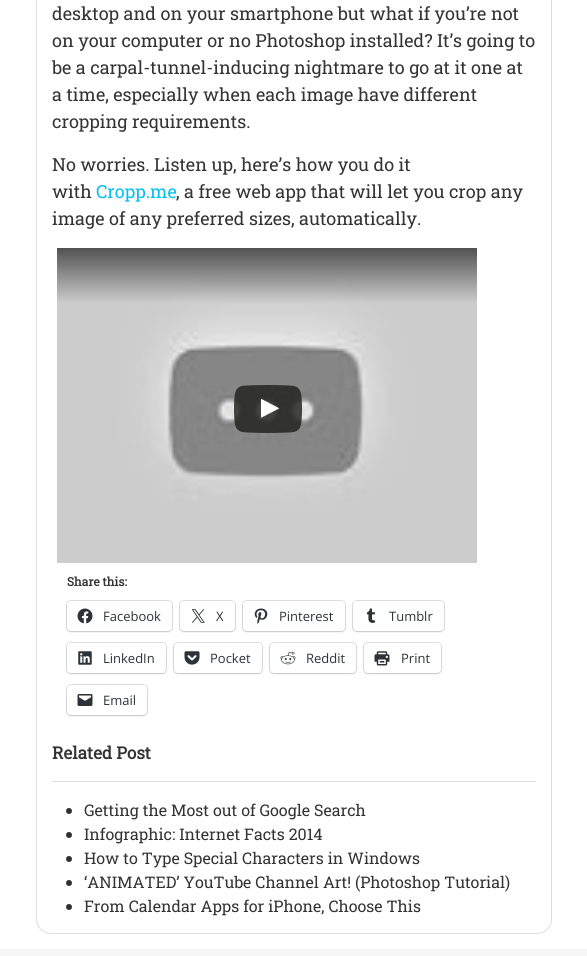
import math
import cairo



def rounded_rect(context, x, y, w, h, r):
    context.new_sub_path()
    for i, (u, v) in enumerate([(x + w - r, y + h - r), (x + r, y + h - r), (x + r, y + r), (x + w - r, y + r)]):
        context.arc(u, v, r, i * math.pi / 2, (i + 1) * math.pi / 2)
    context.close_path()


def draw_shadow(context, x, y, w, h, r, blur, alpha):
    context.push_group_with_content(cairo.Content.ALPHA)
    context.set_operator(cairo.Operator.SOURCE)
    for i in range(15, -16, -2):
        e = blur * i / 6
        if min(w, h) + 2 * e > 0:
            context.set_source_rgba(0, 0, 0, alpha * math.erfc((i - 1) / 8.5) / 2)
            rounded_rect(context, x - e, y - e, w + 2 * e, h + 2 * e, max(0, min(r + e + blur * .6, min(w, h) / 2 + e)))
            context.fill()
    context.mask(context.pop_group())


def draw_image(context, path, x, y, w, h):
    context.save()
    context.set_source_surface(cairo.ImageSurface.create_from_png(path), x, y)
    context.rectangle(x, y, w, h)
    context.fill()
    context.restore()


def draw(context):
    context.set_source_rgb(1, 1, 1)
    context.paint()
    rounded_rect(context, 36.5, -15.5, 515, 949, 14.5)
    context.set_source_rgb(221 / 255, 221 / 255, 221 / 255)
    context.set_line_width(1)
    context.stroke()
    draw_image(context, "images/1.png", 57, 248, 420, 315)
    draw_image(context, "images/2.png", 234, 385, 68, 48)
    rounded_rect(context, 66.5, 600.5, 106, 31, 4.5)
    context.set_source_rgb(224 / 255, 224 / 255, 224 / 255)
    context.stroke()
    context.set_source_rgb(0, 0, 0)
    draw_shadow(context, 67, 602, 105, 30, 4, 1, 0.12)
    context.set_source_rgb(1, 1, 1)
    rounded_rect(context, 67, 601, 105, 30, 4)
    context.fill()
    draw_image(context, "images/3.png", 77, 608, 16, 16)
    rounded_rect(context, 179.5, 600.5, 56, 31, 4.5)
    context.set_source_rgb(224 / 255, 224 / 255, 224 / 255)
    context.stroke()
    context.set_source_rgb(0, 0, 0)
    draw_shadow(context, 180, 602, 55, 30, 4, 1, 0.12)
    context.set_source_rgb(1, 1, 1)
    rounded_rect(context, 180, 601, 55, 30, 4)
    context.fill()
    draw_image(context, "images/4.png", 191, 609, 14, 14)
    rounded_rect(context, 242.5, 600.5, 103, 31, 4.5)
    context.set_source_rgb(224 / 255, 224 / 255, 224 / 255)
    context.stroke()
    context.set_source_rgb(0, 0, 0)
    draw_shadow(context, 243, 602, 102, 30, 4, 1, 0.12)
    context.set_source_rgb(1, 1, 1)
    rounded_rect(context, 243, 601, 102, 30, 4)
    context.fill()
    draw_image(context, "images/5.png", 254, 608, 14, 16)
    rounded_rect(context, 352.5, 600.5, 92, 31, 4.5)
    context.set_source_rgb(224 / 255, 224 / 255, 224 / 255)
    context.stroke()
    context.set_source_rgb(0, 0, 0)
    draw_shadow(context, 353, 602, 91, 30, 4, 1, 0.12)
    context.set_source_rgb(1, 1, 1)
    rounded_rect(context, 353, 601, 91, 30, 4)
    context.fill()
    draw_image(context, "images/6.png", 366, 608, 10, 15)
    rounded_rect(context, 66.5, 642.5, 100, 31, 4.5)
    context.set_source_rgb(224 / 255, 224 / 255, 224 / 255)
    context.stroke()
    context.set_source_rgb(0, 0, 0)
    draw_shadow(context, 67, 644, 99, 30, 4, 1, 0.12)
    context.set_source_rgb(1, 1, 1)
    rounded_rect(context, 67, 643, 99, 30, 4)
    context.fill()
    draw_image(context, "images/7.png", 78, 651, 14, 14)
    rounded_rect(context, 173.5, 642.5, 89, 31, 4.5)
    context.set_source_rgb(224 / 255, 224 / 255, 224 / 255)
    context.stroke()
    context.set_source_rgb(0, 0, 0)
    draw_shadow(context, 174, 644, 88, 30, 4, 1, 0.12)
    context.set_source_rgb(1, 1, 1)
    rounded_rect(context, 174, 643, 88, 30, 4)
    context.fill()
    draw_image(context, "images/8.png", 184, 651, 16, 14)
    rounded_rect(context, 269.5, 642.5, 87, 31, 4.5)
    context.set_source_rgb(224 / 255, 224 / 255, 224 / 255)
    context.stroke()
    context.set_source_rgb(0, 0, 0)
    draw_shadow(context, 270, 644, 86, 30, 4, 1, 0.12)
    context.set_source_rgb(1, 1, 1)
    rounded_rect(context, 270, 643, 86, 30, 4)
    context.fill()
    draw_image(context, "images/9.png", 280, 651, 16, 14)
    rounded_rect(context, 363.5, 642.5, 78, 31, 4.5)
    context.set_source_rgb(224 / 255, 224 / 255, 224 / 255)
    context.stroke()
    context.set_source_rgb(0, 0, 0)
    draw_shadow(context, 364, 644, 77, 30, 4, 1, 0.12)
    context.set_source_rgb(1, 1, 1)
    rounded_rect(context, 364, 643, 77, 30, 4)
    context.fill()
    draw_image(context, "images/10.png", 374, 651, 16, 15)
    rounded_rect(context, 66.5, 684.5, 81, 31, 4.5)
    context.set_source_rgb(224 / 255, 224 / 255, 224 / 255)
    context.stroke()
    context.set_source_rgb(0, 0, 0)
    draw_shadow(context, 67, 686, 80, 30, 4, 1, 0.12)
    context.set_source_rgb(1, 1, 1)
    rounded_rect(context, 67, 685, 80, 30, 4)
    context.fill()
    draw_image(context, "images/11.png", 77, 694, 16, 12)
    context.set_source_rgb(221 / 255, 221 / 255, 221 / 255)
    context.rectangle(52, 781, 484, 1)
    context.fill()
    context.set_source_rgb(51 / 255, 51 / 255, 51 / 255)
    context.arc(69, 811, 3, 0, 2 * math.pi)
    context.fill()
    context.arc(69, 835, 3, 0, 2 * math.pi)
    context.fill()
    context.arc(69, 859, 3, 0, 2 * math.pi)
    context.fill()
    context.arc(69, 883, 3, 0, 2 * math.pi)
    context.fill()
    context.arc(69, 907, 3, 0, 2 * math.pi)
    context.fill()
    context.set_source_rgb(246 / 255, 246 / 255, 246 / 255)
    context.rectangle(0, 949, 587, 7)
    context.fill()
    context.select_font_face("Roboto Slab")
    context.set_font_size(18)
    context.set_source_rgb(51 / 255, 51 / 255, 51 / 255)
    context.move_to(52, 20)
    context.show_text("desktop and on your smartphone but what if you’re not")
    context.move_to(52, 47)
    context.show_text("on your computer or no Photoshop installed? It’s going to")
    context.move_to(52, 74)
    context.show_text("be a carpal-tunnel-inducing nightmare to go at it one at")
    context.move_to(52, 101)
    context.show_text("a time, especially when each image have different")
    context.move_to(52, 128)
    context.show_text("cropping requirements.")
    context.move_to(52, 171)
    context.show_text("No worries. Listen up, here’s how you do it")
    context.move_to(52, 198)
    context.show_text("with")
    context.set_source_rgb(2 / 255, 191 / 255, 243 / 255)
    context.move_to(96, 198)
    context.show_text("Cropp.me")
    context.set_source_rgb(51 / 255, 51 / 255, 51 / 255)
    context.move_to(176, 198)
    context.show_text(", a free web app that will let you crop any")
    context.move_to(52, 225)
    context.show_text("image of any preferred sizes, automatically.")
    context.select_font_face("Roboto Slab", cairo.FontSlant.NORMAL, cairo.FontWeight.BOLD)
    context.set_font_size(12)
    context.move_to(67, 586)
    context.show_text("Share this:")
    context.select_font_face("Open Sans")
    context.set_font_size(13)
    context.set_source_rgb(44 / 255, 51 / 255, 56 / 255)
    context.move_to(103, 621)
    context.show_text("Facebook")
    context.move_to(216, 621)
    context.show_text("X")
    context.move_to(279, 621)
    context.show_text("Pinterest")
    context.move_to(389, 621)
    context.show_text("Tumblr")
    context.move_to(103, 663)
    context.show_text("LinkedIn")
    context.move_to(210, 663)
    context.show_text("Pocket")
    context.move_to(306, 663)
    context.show_text("Reddit")
    context.move_to(401, 663)
    context.show_text("Print")
    context.move_to(103, 705)
    context.show_text("Email")
    context.select_font_face("Roboto Slab", cairo.FontSlant.NORMAL, cairo.FontWeight.BOLD)
    context.set_font_size(17)
    context.set_source_rgb(51 / 255, 51 / 255, 51 / 255)
    context.move_to(52, 759)
    context.show_text("Related Post")
    context.select_font_face("Roboto Slab")
    context.set_font_size(16)
    context.move_to(84, 816)
    context.show_text("Getting the Most out of Google Search")
    context.move_to(84, 840)
    context.show_text("Infographic: Internet Facts 2014")
    context.move_to(84, 864)
    context.show_text("How to Type Special Characters in Windows")
    context.move_to(84, 888)
    context.show_text("‘ANIMATED’ YouTube Channel Art! (Photoshop Tutorial)")
    context.move_to(84, 912)
    context.show_text("From Calendar Apps for iPhone, Choose This")


surface = cairo.ImageSurface(cairo.Format.RGB24, 587, 956)
context = cairo.Context(surface)
options = cairo.FontOptions()
options.set_hint_metrics(cairo.HintMetrics.OFF)
options.set_hint_style(cairo.HintStyle.NONE)
context.set_font_options(options)
context.set_miter_limit(4)
draw(context)
surface.write_to_png("out.png")
